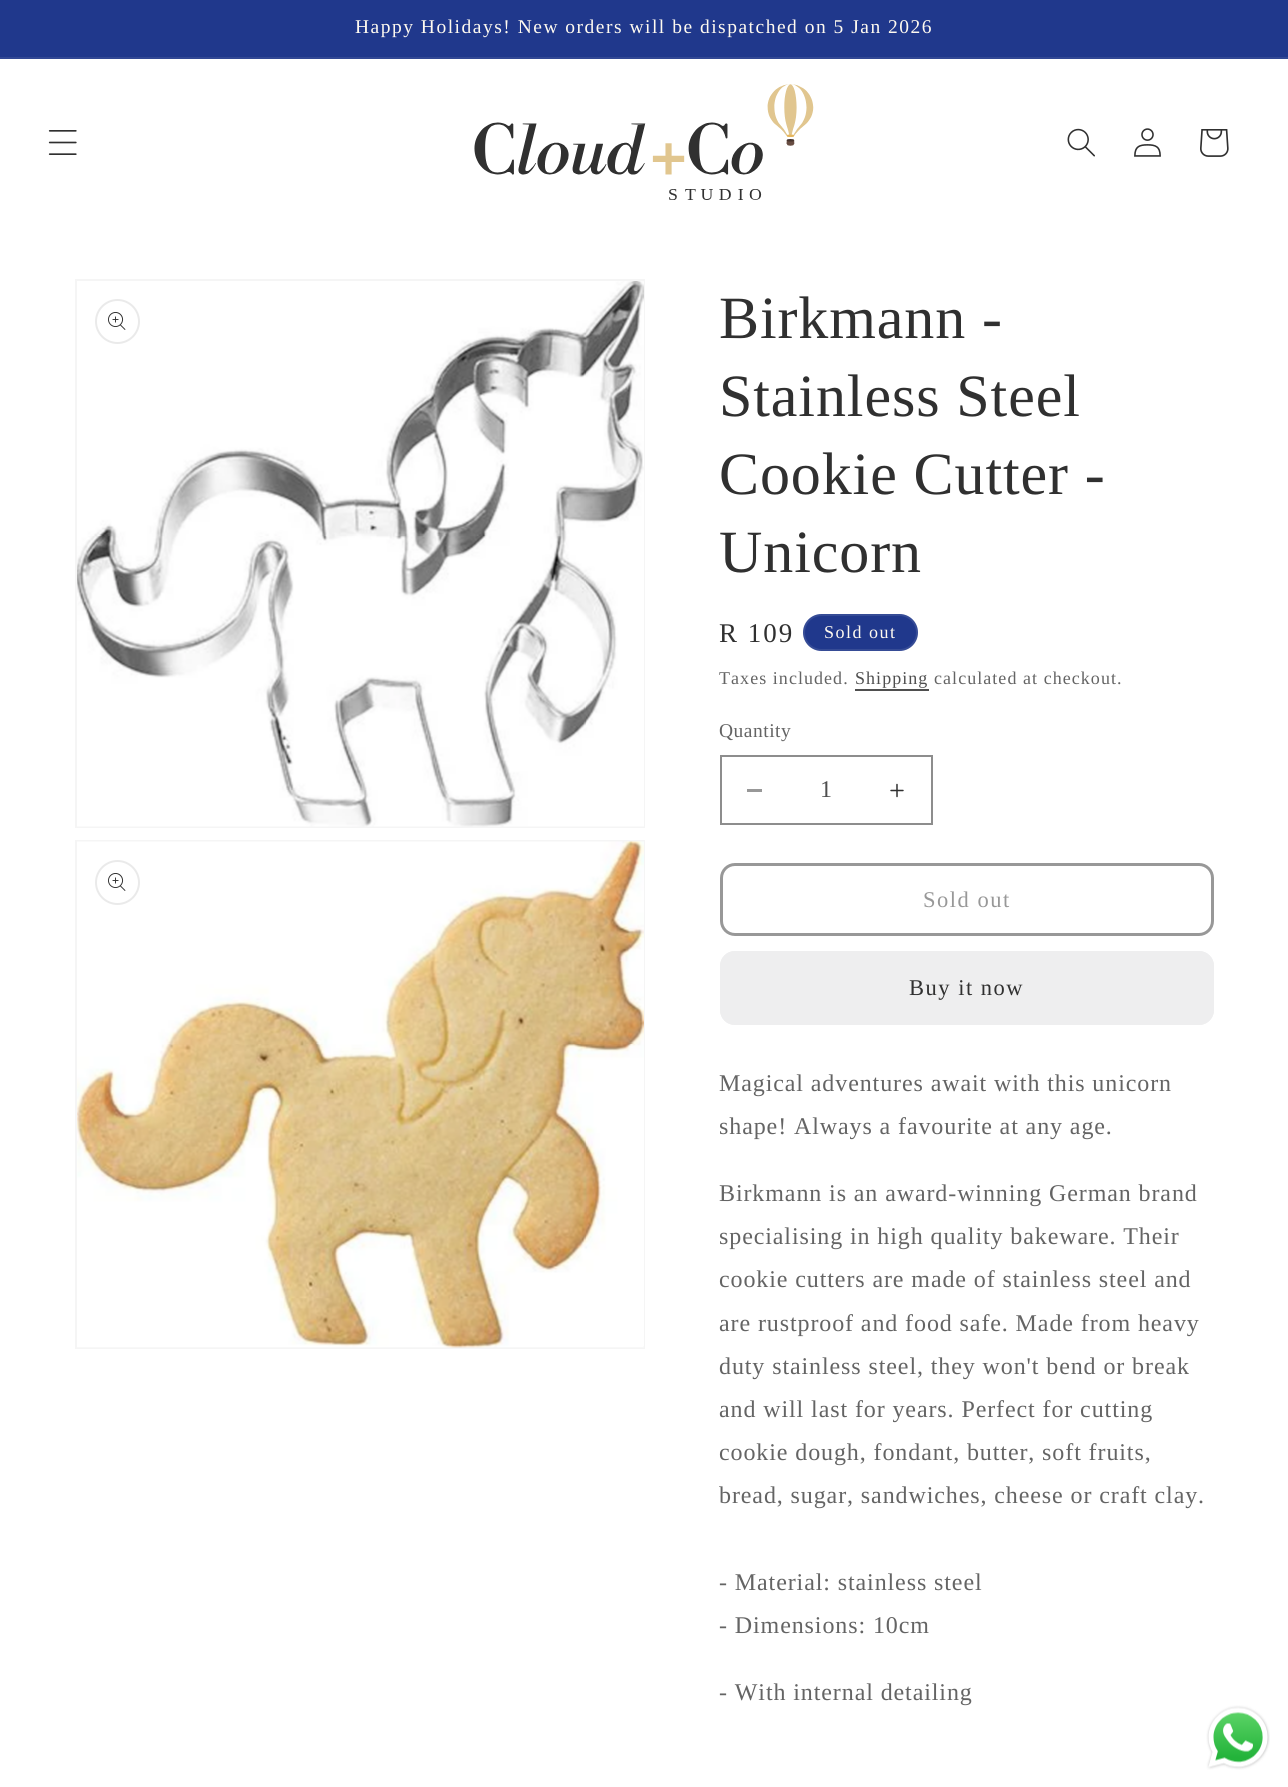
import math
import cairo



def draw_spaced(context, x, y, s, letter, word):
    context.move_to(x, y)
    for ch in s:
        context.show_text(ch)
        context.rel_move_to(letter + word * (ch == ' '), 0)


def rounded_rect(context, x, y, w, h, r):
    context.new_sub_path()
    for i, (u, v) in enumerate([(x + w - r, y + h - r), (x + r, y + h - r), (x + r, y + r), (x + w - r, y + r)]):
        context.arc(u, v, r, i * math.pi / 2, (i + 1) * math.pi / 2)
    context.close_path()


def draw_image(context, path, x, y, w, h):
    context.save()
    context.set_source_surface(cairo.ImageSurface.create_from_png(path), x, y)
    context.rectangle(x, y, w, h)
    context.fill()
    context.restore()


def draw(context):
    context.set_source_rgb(1, 1, 1)
    context.paint()
    context.set_source_rgb(32 / 255, 56 / 255, 140 / 255)
    context.rectangle(0, 0, 1288, 57)
    context.fill()
    context.set_source_rgb(50 / 255, 72 / 255, 148 / 255)
    context.rectangle(0, 57, 1288, 2)
    context.fill()
    draw_image(context, "images/1.png", 48, 130, 29, 25)
    draw_image(context, "images/2.png", 474, 84, 340, 116)
    draw_image(context, "images/3.png", 1067, 128, 28, 29)
    draw_image(context, "images/4.png", 1134, 128, 27, 29)
    draw_image(context, "images/5.png", 1200, 129, 29, 28)
    context.rectangle(76, 280, 568, 547)
    context.set_source_rgb(245 / 255, 245 / 255, 245 / 255)
    context.stroke()
    draw_image(context, "images/6.png", 77, 281, 567, 546)
    context.arc(117.5, 321.5, 21.5, 0, 2 * math.pi)
    context.set_source_rgb(234 / 255, 234 / 255, 234 / 255)
    context.stroke()
    draw_image(context, "images/7.png", 108, 312, 18, 18)
    context.rectangle(76, 841, 568, 507)
    context.set_source_rgb(245 / 255, 245 / 255, 245 / 255)
    context.stroke()
    draw_image(context, "images/8.png", 77, 841, 567, 507)
    context.arc(117.5, 882.5, 21.5, 0, 2 * math.pi)
    context.set_source_rgb(234 / 255, 234 / 255, 234 / 255)
    context.stroke()
    draw_image(context, "images/7.png", 108, 873, 18, 18)
    context.set_source_rgb(32 / 255, 56 / 255, 140 / 255)
    rounded_rect(context, 803, 614, 115, 37, 18.5)
    context.fill()
    rounded_rect(context, 804, 615, 113, 35, 17.5)
    context.set_source_rgba(1, 250 / 255, 240 / 255, 0.1)
    context.stroke()
    context.set_source_rgb(79 / 255, 79 / 255, 79 / 255)
    context.rectangle(855, 689, 74, 2)
    context.fill()
    context.set_source_rgb(152 / 255, 152 / 255, 152 / 255)
    context.rectangle(747, 789, 15, 3)
    context.fill()
    draw_image(context, "images/9.png", 890, 783, 14, 15)
    context.rectangle(721, 756, 211, 68)
    context.set_source_rgb(141 / 255, 141 / 255, 141 / 255)
    context.stroke()
    rounded_rect(context, 721.5, 864.5, 491, 70, 13.5)
    context.set_source_rgb(152 / 255, 152 / 255, 152 / 255)
    context.set_line_width(3)
    context.stroke()
    context.set_source_rgb(238 / 255, 238 / 255, 239 / 255)
    rounded_rect(context, 720, 951, 494, 74, 15)
    context.fill()
    rounded_rect(context, 721.5, 952.5, 491, 71, 13.5)
    context.stroke()
    draw_image(context, "images/10.png", 1206, 1705, 64, 65)
    context.select_font_face("Liberation Serif")
    context.set_font_size(19.5)
    context.set_source_rgb(1, 250 / 255, 240 / 255)
    draw_spaced(context, 355, 33, "Happy Holidays! New orders will be dispatched on 5 Jan 2026", 1.5, 0)
    context.set_font_size(60)
    context.set_source_rgb(48 / 255, 48 / 255, 48 / 255)
    draw_spaced(context, 719, 338, "Birkmann -", 0.9, 0)
    draw_spaced(context, 719, 416, "Stainless Steel", 0.9, 0)
    draw_spaced(context, 719, 494, "Cookie Cutter -", 0.9, 0)
    draw_spaced(context, 719, 572, "Unicorn", 0.9, 0)
    context.set_font_size(27)
    draw_spaced(context, 719, 642, "R 109", 2, 0)
    context.set_font_size(18)
    context.set_source_rgb(1, 250 / 255, 240 / 255)
    draw_spaced(context, 824, 638, "Sold out", 1.5, 0)
    context.set_source_rgb(100 / 255, 100 / 255, 100 / 255)
    draw_spaced(context, 719, 684, "Taxes included.", 1.05, 0)
    context.set_source_rgb(79 / 255, 79 / 255, 79 / 255)
    draw_spaced(context, 855, 684, "Shipping", 1.05, 0)
    context.set_source_rgb(100 / 255, 100 / 255, 100 / 255)
    draw_spaced(context, 934, 684, "calculated at checkout.", 1.05, 0)
    context.set_font_size(19.5)
    draw_spaced(context, 719, 737, "Quantity", 0.5, 0)
    context.set_font_size(24)
    context.set_source_rgb(79 / 255, 79 / 255, 79 / 255)
    context.move_to(820, 797)
    context.show_text("1")
    context.set_font_size(22.5)
    context.set_source_rgb(152 / 255, 152 / 255, 152 / 255)
    draw_spaced(context, 923, 907, "Sold out", 1.5, 0)
    context.set_source_rgb(48 / 255, 48 / 255, 48 / 255)
    draw_spaced(context, 909, 995, "Buy it now", 1.5, 0)
    context.set_font_size(24)
    context.set_source_rgb(100 / 255, 100 / 255, 100 / 255)
    draw_spaced(context, 719, 1091, "Magical adventures await with this unicorn", 0.9, 0)
    draw_spaced(context, 719, 1134, "shape! Always a favourite at any age.", 0.9, 0)
    draw_spaced(context, 719, 1201, "Birkmann is an award-winning German brand", 0.9, 0)
    draw_spaced(context, 719, 1244, "specialising in high quality bakeware. Their", 0.9, 0)
    draw_spaced(context, 719, 1287, "cookie cutters are made of stainless steel and", 0.9, 0)
    draw_spaced(context, 719, 1331, "are rustproof and food safe. Made from heavy", 0.9, 0)
    draw_spaced(context, 719, 1374, "duty stainless steel, they won't bend or break", 0.9, 0)
    draw_spaced(context, 719, 1417, "and will last for years. Perfect for cutting", 0.9, 0)
    draw_spaced(context, 719, 1460, "cookie dough, fondant, butter, soft fruits,", 0.9, 0)
    draw_spaced(context, 719, 1503, "bread, sugar, sandwiches, cheese or craft clay.", 0.9, 0)
    draw_spaced(context, 719, 1590, "- Material: stainless steel", 0.9, 0)
    draw_spaced(context, 719, 1633, "- Dimensions: 10cm", 0.9, 0)
    draw_spaced(context, 719, 1700, "- With internal detailing", 0.9, 0)


surface = cairo.ImageSurface(cairo.Format.RGB24, 1288, 1787)
context = cairo.Context(surface)
options = cairo.FontOptions()
options.set_hint_metrics(cairo.HintMetrics.OFF)
options.set_hint_style(cairo.HintStyle.NONE)
context.set_font_options(options)
context.set_miter_limit(4)
draw(context)
surface.write_to_png("out.png")
